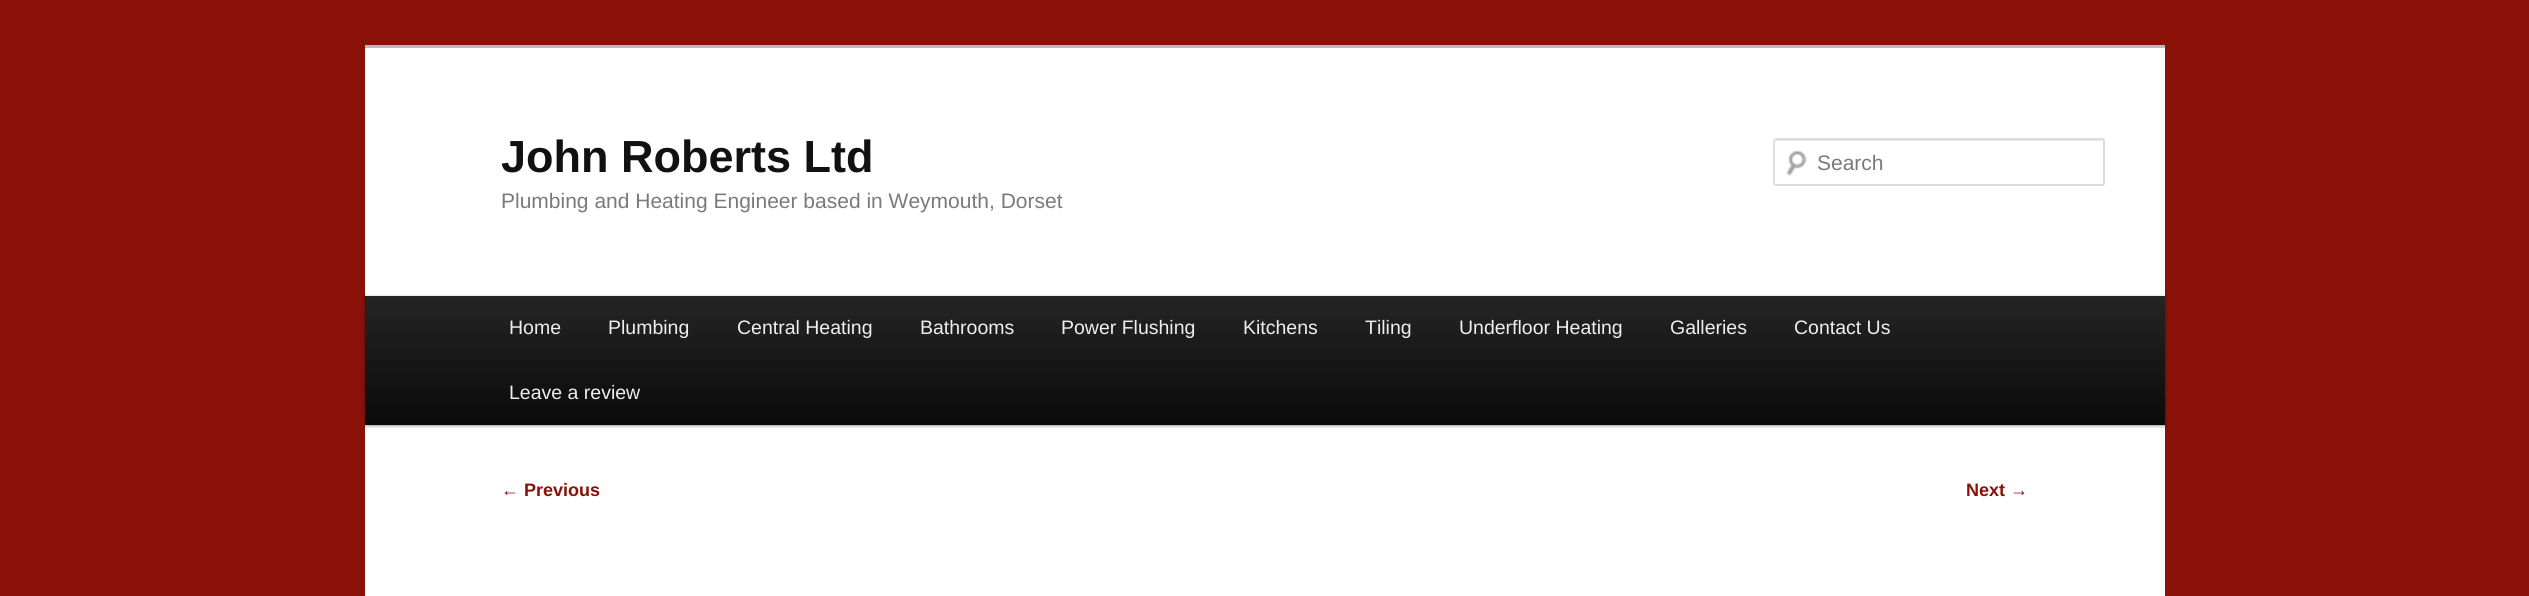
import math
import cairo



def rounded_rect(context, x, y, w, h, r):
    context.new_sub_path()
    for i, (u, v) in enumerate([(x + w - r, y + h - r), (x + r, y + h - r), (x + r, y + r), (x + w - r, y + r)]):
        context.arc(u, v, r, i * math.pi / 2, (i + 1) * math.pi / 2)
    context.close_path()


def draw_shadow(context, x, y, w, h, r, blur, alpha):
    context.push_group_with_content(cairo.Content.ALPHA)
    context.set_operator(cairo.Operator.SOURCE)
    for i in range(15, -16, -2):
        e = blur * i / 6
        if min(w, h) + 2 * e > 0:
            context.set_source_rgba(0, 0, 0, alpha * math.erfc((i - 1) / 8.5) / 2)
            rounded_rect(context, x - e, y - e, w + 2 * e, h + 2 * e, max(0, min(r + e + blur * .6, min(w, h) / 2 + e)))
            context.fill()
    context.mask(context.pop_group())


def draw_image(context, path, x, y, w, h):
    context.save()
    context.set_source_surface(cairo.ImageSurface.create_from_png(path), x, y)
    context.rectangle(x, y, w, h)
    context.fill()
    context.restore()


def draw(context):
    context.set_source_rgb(137 / 255, 17 / 255, 8 / 255)
    context.paint()
    context.set_source_rgb(1, 1, 1)
    context.rectangle(365, 48, 1800, 548)
    context.fill()
    context.set_source_rgb(187 / 255, 187 / 255, 187 / 255)
    context.rectangle(365, 45, 1800, 3)
    context.fill()
    draw_image(context, "images/1.png", 1786, 150, 21, 26)
    context.set_source_rgb(230 / 255, 230 / 255, 230 / 255)
    context.new_path()
    context.move_to(1776, 141)
    context.line_to(2102, 141)
    context.line_to(2103, 142)
    context.curve_to(2103, 141, 2102, 140, 2102, 140)
    context.line_to(1776, 140)
    context.curve_to(1776, 140, 1775, 141, 1775, 141)
    context.close_path()
    context.fill()
    rounded_rect(context, 1774, 139, 330, 46, 2)
    context.set_source_rgb(221 / 255, 221 / 255, 221 / 255)
    context.stroke()
    context.set_source_rgb(0, 0, 0)
    draw_shadow(context, 365, 297, 1800, 129, 0, 1.5, 0.4)
    gradient = cairo.LinearGradient(1265, 295, 1265, 425)
    gradient.add_color_stop_rgba(0, 37 / 255, 37 / 255, 37 / 255, 1)
    gradient.add_color_stop_rgba(1, 10 / 255, 10 / 255, 10 / 255, 1)
    context.set_source(gradient)
    context.rectangle(365, 296, 1800, 129)
    context.fill()
    context.select_font_face("Liberation Sans", cairo.FontSlant.NORMAL, cairo.FontWeight.BOLD)
    context.set_font_size(45)
    context.set_source_rgb(17 / 255, 17 / 255, 17 / 255)
    context.move_to(501, 172)
    context.show_text("John Roberts Ltd")
    context.select_font_face("Liberation Sans")
    context.set_font_size(21)
    context.set_source_rgb(122 / 255, 122 / 255, 122 / 255)
    context.move_to(501, 208)
    context.show_text("Plumbing and Heating Engineer based in Weymouth, Dorset")
    context.move_to(1817, 170)
    context.show_text("Search")
    context.set_font_size(19.5)
    context.set_source_rgb(238 / 255, 238 / 255, 238 / 255)
    context.move_to(509, 334)
    context.show_text("Home")
    context.move_to(608, 334)
    context.show_text("Plumbing")
    context.move_to(737, 334)
    context.show_text("Central Heating")
    context.move_to(920, 334)
    context.show_text("Bathrooms")
    context.move_to(1061, 334)
    context.show_text("Power Flushing")
    context.move_to(1243, 334)
    context.show_text("Kitchens")
    context.move_to(1365, 334)
    context.show_text("Tiling")
    context.move_to(1459, 334)
    context.show_text("Underfloor Heating")
    context.move_to(1670, 334)
    context.show_text("Galleries")
    context.move_to(1794, 334)
    context.show_text("Contact Us")
    context.move_to(509, 399)
    context.show_text("Leave a review")
    context.select_font_face("Liberation Sans", cairo.FontSlant.NORMAL, cairo.FontWeight.BOLD)
    context.set_font_size(18)
    context.set_source_rgb(137 / 255, 17 / 255, 8 / 255)
    context.move_to(501, 496)
    context.show_text("← Previous")
    context.move_to(1966, 496)
    context.show_text("Next →")


surface = cairo.ImageSurface(cairo.Format.RGB24, 2529, 596)
context = cairo.Context(surface)
options = cairo.FontOptions()
options.set_hint_metrics(cairo.HintMetrics.OFF)
options.set_hint_style(cairo.HintStyle.NONE)
context.set_font_options(options)
context.set_miter_limit(4)
draw(context)
surface.write_to_png("out.png")
